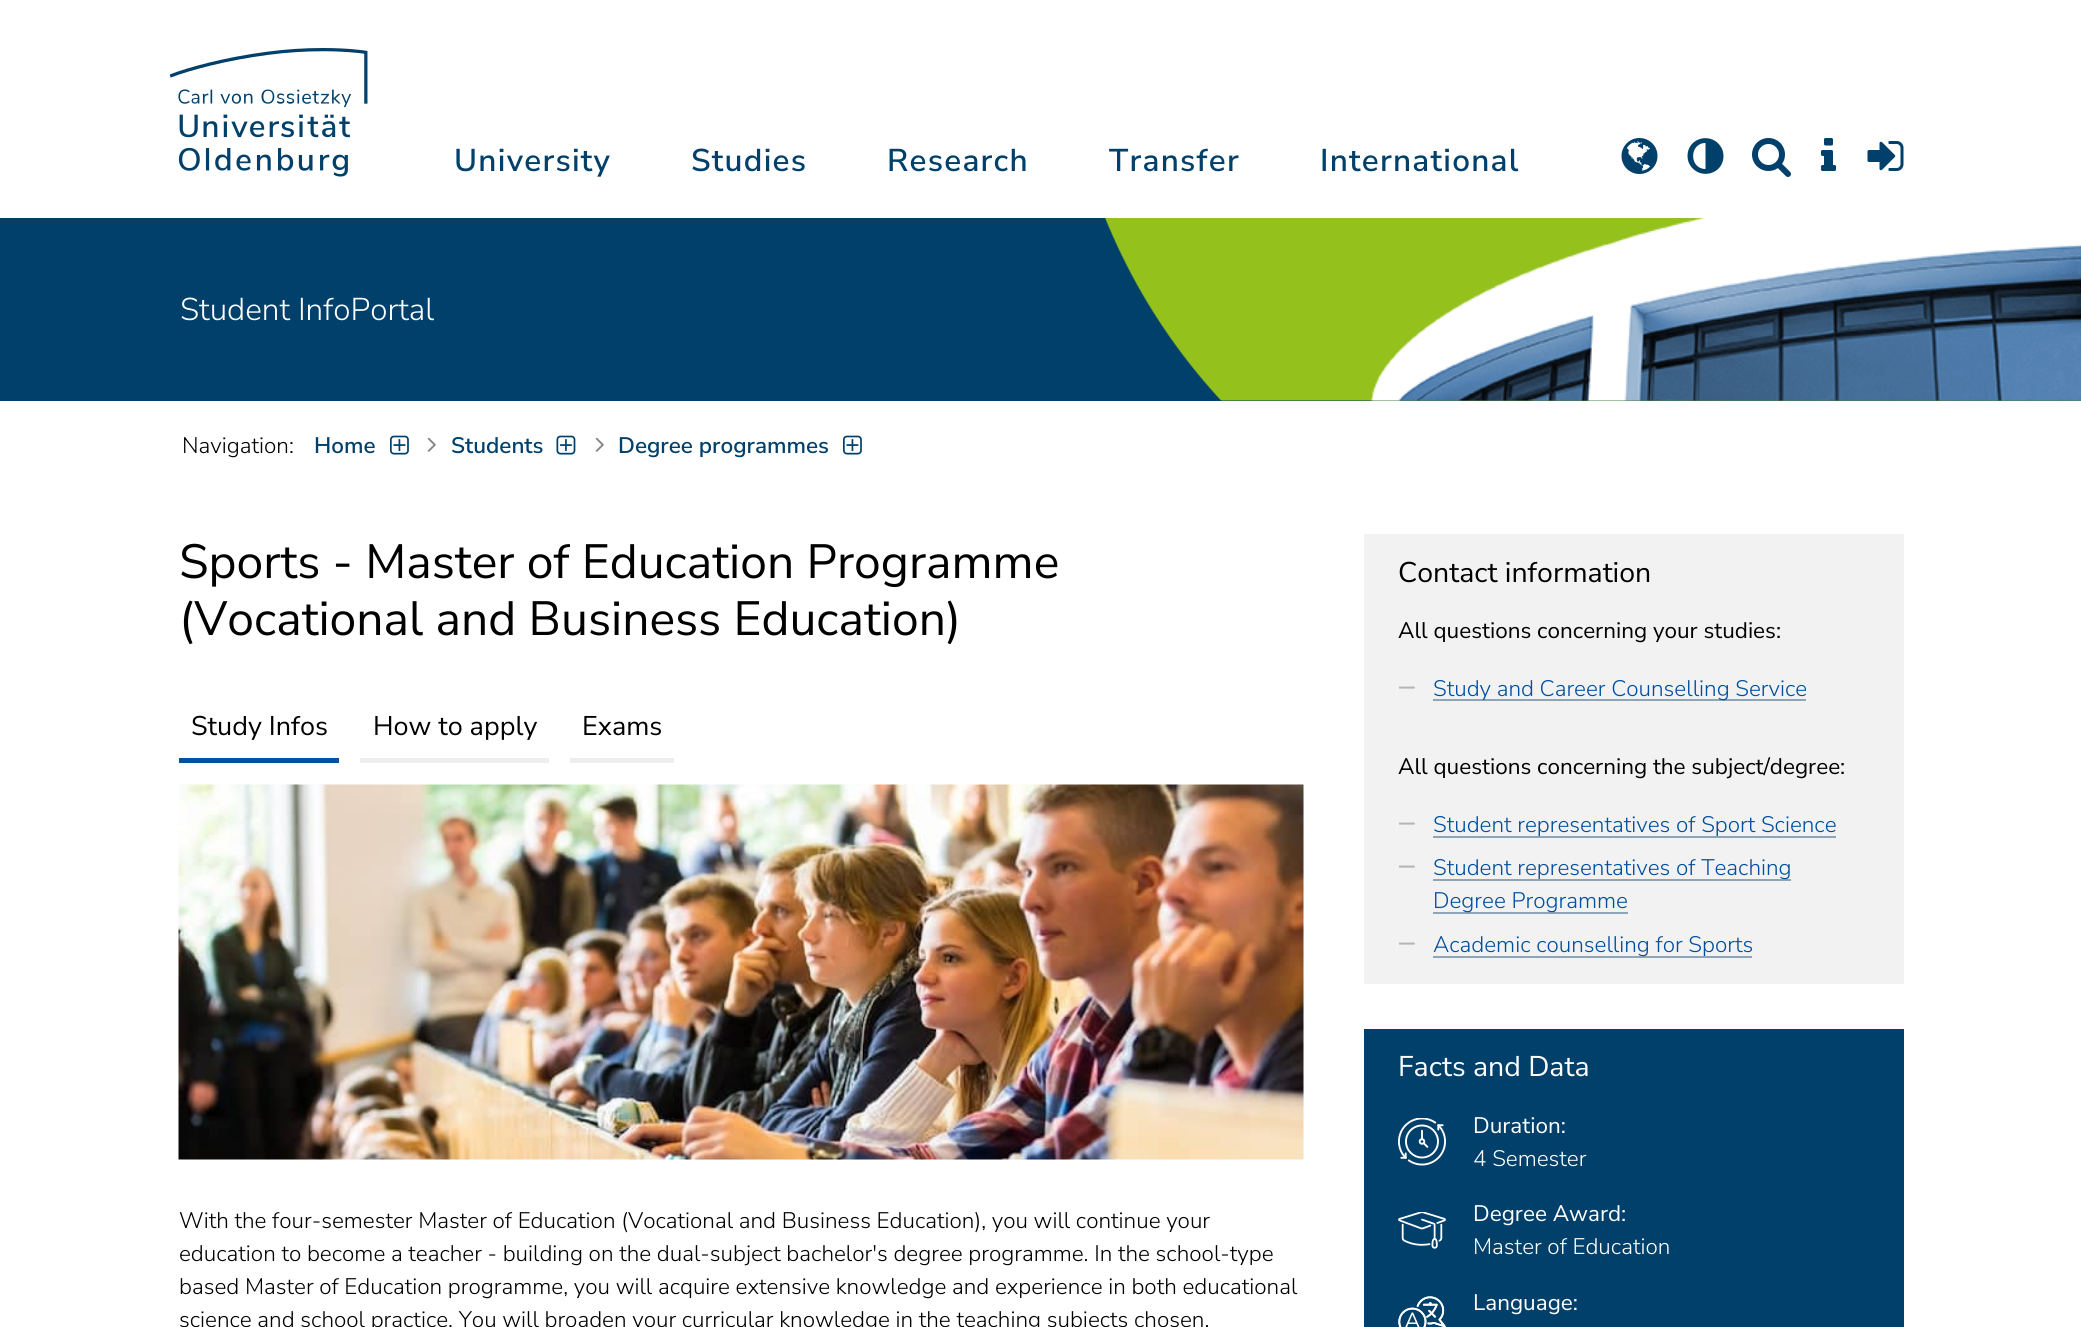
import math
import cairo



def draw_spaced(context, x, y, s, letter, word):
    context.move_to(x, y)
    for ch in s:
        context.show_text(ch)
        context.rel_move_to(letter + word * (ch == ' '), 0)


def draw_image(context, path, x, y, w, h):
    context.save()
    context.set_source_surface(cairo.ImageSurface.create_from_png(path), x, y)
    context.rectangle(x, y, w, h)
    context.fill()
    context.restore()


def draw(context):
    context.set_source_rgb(1, 1, 1)
    context.paint()
    draw_image(context, "images/1.png", 170, 48, 198, 129)
    draw_image(context, "images/2.png", 1621, 138, 37, 36)
    context.set_source_rgb(0, 64 / 255, 107 / 255)
    context.new_path()
    context.move_to(1705.5, 169)
    context.line_to(1705.5, 143)
    context.curve_to(1689, 143, 1689, 169, 1705.5, 169)
    context.close_path()
    context.move_to(1721, 147)
    context.curve_to(1723, 150, 1723.5, 153.5, 1723.5, 157)
    context.curve_to(1722.5, 175, 1699, 180, 1690, 165)
    context.curve_to(1688, 162, 1687.5, 158.5, 1687.5, 155)
    context.curve_to(1688.5, 137, 1712, 132, 1721, 147)
    context.close_path()
    context.fill()
    draw_image(context, "images/3.png", 1752, 138, 39, 39)
    draw_image(context, "images/4.png", 1821, 138, 15, 33)
    draw_image(context, "images/5.png", 1867, 141, 37, 30)
    context.rectangle(0, 218, 2081, 183)
    context.fill()
    draw_image(context, "images/6.png", 1105, 218, 976, 183)
    draw_image(context, "images/7.png", 390, 435, 19, 20)
    draw_image(context, "images/8.png", 427, 437, 9, 15)
    draw_image(context, "images/9.png", 556, 435, 20, 20)
    draw_image(context, "images/8.png", 595, 437, 9, 15)
    draw_image(context, "images/7.png", 843, 435, 19, 20)
    context.set_source_rgb(0, 81 / 255, 158 / 255)
    context.rectangle(179, 758, 160, 5)
    context.fill()
    context.set_source_rgb(238 / 255, 238 / 255, 238 / 255)
    context.rectangle(360, 758, 189, 5)
    context.fill()
    context.rectangle(570, 758, 104, 5)
    context.fill()
    draw_image(context, "images/10.png", 178, 784, 1126, 376)
    context.set_source_rgb(242 / 255, 242 / 255, 242 / 255)
    context.rectangle(1364, 534, 540, 450)
    context.fill()
    context.set_source_rgb(142 / 255, 165 / 255, 184 / 255)
    context.rectangle(1433, 699, 373, 2)
    context.fill()
    context.rectangle(1433, 836, 403, 2)
    context.fill()
    context.rectangle(1433, 879, 358, 2)
    context.fill()
    context.rectangle(1433, 912, 195, 2)
    context.fill()
    context.rectangle(1433, 956, 319, 2)
    context.fill()
    context.set_source_rgb(0, 64 / 255, 107 / 255)
    context.rectangle(1364, 1029, 540, 298)
    context.fill()
    draw_image(context, "images/11.png", 1398, 1118, 48, 48)
    draw_image(context, "images/12.png", 1398, 1212, 48, 37)
    draw_image(context, "images/13.png", 1398, 1296, 48, 31)
    context.select_font_face("Nunito Sans SemiBold")
    context.set_font_size(31.5)
    draw_spaced(context, 454, 171, "University", 1.25, 0)
    draw_spaced(context, 691, 171, "Studies", 1.25, 0)
    draw_spaced(context, 887, 171, "Research", 1.25, 0)
    draw_spaced(context, 1109, 171, "Transfer", 1.25, 0)
    draw_spaced(context, 1320, 171, "International", 1.25, 0)
    context.select_font_face("Nunito Sans Light")
    context.set_source_rgb(1, 1, 1)
    context.move_to(180, 320)
    context.show_text("Student InfoPortal")
    context.set_font_size(22.5)
    context.set_source_rgb(0, 0, 0)
    context.move_to(182, 453)
    context.show_text("Navigation:")
    context.select_font_face("Nunito Sans SemiBold")
    context.set_source_rgb(0, 64 / 255, 107 / 255)
    context.move_to(314, 453)
    context.show_text("Home")
    context.move_to(451, 453)
    context.show_text("Students")
    context.move_to(618, 453)
    context.show_text("Degree programmes")
    context.select_font_face("Nunito Sans")
    context.set_font_size(48)
    context.set_source_rgb(0, 0, 0)
    context.move_to(179, 578)
    context.show_text("Sports - Master of Education Programme")
    context.move_to(179, 635)
    context.show_text("(Vocational and Business Education)")
    context.set_font_size(27)
    context.move_to(191, 735)
    context.show_text("Study Infos")
    context.move_to(373, 735)
    context.show_text("How to apply")
    context.move_to(582, 735)
    context.show_text("Exams")
    context.select_font_face("Nunito Sans Light")
    context.set_font_size(22.5)
    context.move_to(179, 1228)
    context.show_text("With the four-semester Master of Education (Vocational and Business Education), you will continue your")
    context.move_to(179, 1261)
    context.show_text("education to become a teacher - building on the dual-subject bachelor's degree programme. In the school-type")
    context.move_to(179, 1294)
    context.show_text("based Master of Education programme, you will acquire extensive knowledge and experience in both educational")
    context.move_to(179, 1327)
    context.show_text("science and school practice. You will broaden your curricular knowledge in the teaching subjects chosen.")
    context.select_font_face("Nunito Sans")
    context.set_font_size(28.5)
    context.move_to(1398, 582)
    context.show_text("Contact information")
    context.set_font_size(22.5)
    context.move_to(1398, 638)
    context.show_text("All questions concerning your studies:")
    context.select_font_face("Nunito Sans SemiBold")
    context.set_font_size(31.5)
    context.set_source_rgb(179 / 255, 179 / 255, 179 / 255)
    context.move_to(1399, 696)
    context.show_text("–")
    context.select_font_face("Nunito Sans Light")
    context.set_font_size(22.5)
    context.set_source_rgb(0, 78 / 255, 159 / 255)
    context.move_to(1433, 696)
    context.show_text("Study and Career Counselling Service")
    context.select_font_face("Nunito Sans")
    context.set_source_rgb(0, 0, 0)
    context.move_to(1398, 774)
    context.show_text("All questions concerning the subject/degree:")
    context.select_font_face("Nunito Sans SemiBold")
    context.set_font_size(31.5)
    context.set_source_rgb(179 / 255, 179 / 255, 179 / 255)
    context.move_to(1399, 832)
    context.show_text("–")
    context.select_font_face("Nunito Sans Light")
    context.set_font_size(22.5)
    context.set_source_rgb(0, 78 / 255, 159 / 255)
    context.move_to(1433, 832)
    context.show_text("Student representatives of Sport Science")
    context.select_font_face("Nunito Sans SemiBold")
    context.set_font_size(31.5)
    context.set_source_rgb(179 / 255, 179 / 255, 179 / 255)
    context.move_to(1399, 875)
    context.show_text("–")
    context.select_font_face("Nunito Sans Light")
    context.set_font_size(22.5)
    context.set_source_rgb(0, 78 / 255, 159 / 255)
    context.move_to(1433, 875)
    context.show_text("Student representatives of Teaching")
    context.move_to(1433, 908)
    context.show_text("Degree Programme")
    context.select_font_face("Nunito Sans SemiBold")
    context.set_font_size(31.5)
    context.set_source_rgb(179 / 255, 179 / 255, 179 / 255)
    context.move_to(1399, 952)
    context.show_text("–")
    context.select_font_face("Nunito Sans Light")
    context.set_font_size(22.5)
    context.set_source_rgb(0, 78 / 255, 159 / 255)
    context.move_to(1433, 952)
    context.show_text("Academic counselling for Sports")
    context.select_font_face("Nunito Sans")
    context.set_font_size(28.5)
    context.set_source_rgb(1, 1, 1)
    context.move_to(1398, 1076)
    context.show_text("Facts and Data")
    context.set_font_size(22.5)
    context.move_to(1473, 1133)
    context.show_text("Duration:")
    context.select_font_face("Nunito Sans Light")
    context.move_to(1473, 1166)
    context.show_text("4 Semester")
    context.select_font_face("Nunito Sans")
    context.move_to(1473, 1221)
    context.show_text("Degree Award:")
    context.select_font_face("Nunito Sans Light")
    context.move_to(1473, 1254)
    context.show_text("Master of Education")
    context.select_font_face("Nunito Sans")
    context.move_to(1473, 1310)
    context.show_text("Language:")


surface = cairo.ImageSurface(cairo.Format.RGB24, 2081, 1327)
context = cairo.Context(surface)
options = cairo.FontOptions()
options.set_hint_metrics(cairo.HintMetrics.OFF)
options.set_hint_style(cairo.HintStyle.NONE)
context.set_font_options(options)
context.set_miter_limit(4)
draw(context)
surface.write_to_png("out.png")
